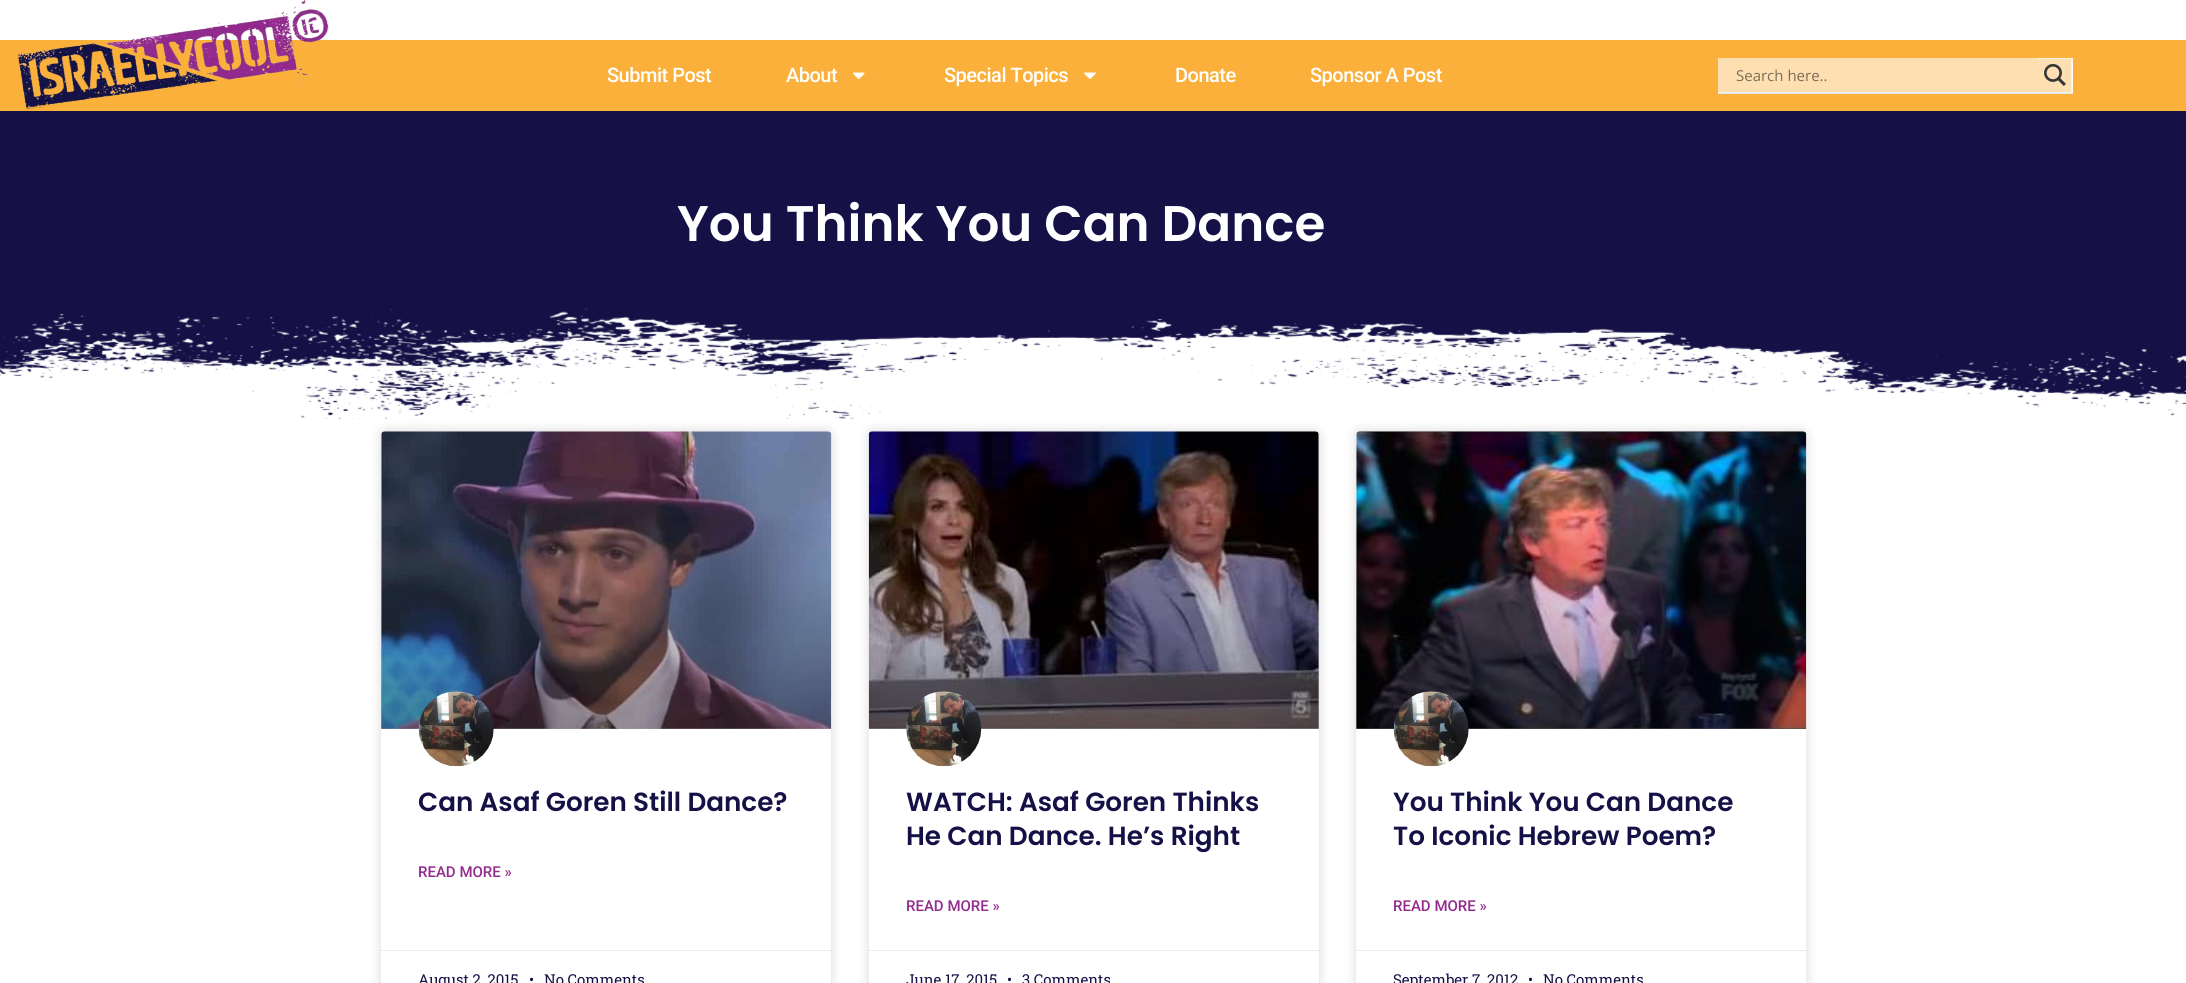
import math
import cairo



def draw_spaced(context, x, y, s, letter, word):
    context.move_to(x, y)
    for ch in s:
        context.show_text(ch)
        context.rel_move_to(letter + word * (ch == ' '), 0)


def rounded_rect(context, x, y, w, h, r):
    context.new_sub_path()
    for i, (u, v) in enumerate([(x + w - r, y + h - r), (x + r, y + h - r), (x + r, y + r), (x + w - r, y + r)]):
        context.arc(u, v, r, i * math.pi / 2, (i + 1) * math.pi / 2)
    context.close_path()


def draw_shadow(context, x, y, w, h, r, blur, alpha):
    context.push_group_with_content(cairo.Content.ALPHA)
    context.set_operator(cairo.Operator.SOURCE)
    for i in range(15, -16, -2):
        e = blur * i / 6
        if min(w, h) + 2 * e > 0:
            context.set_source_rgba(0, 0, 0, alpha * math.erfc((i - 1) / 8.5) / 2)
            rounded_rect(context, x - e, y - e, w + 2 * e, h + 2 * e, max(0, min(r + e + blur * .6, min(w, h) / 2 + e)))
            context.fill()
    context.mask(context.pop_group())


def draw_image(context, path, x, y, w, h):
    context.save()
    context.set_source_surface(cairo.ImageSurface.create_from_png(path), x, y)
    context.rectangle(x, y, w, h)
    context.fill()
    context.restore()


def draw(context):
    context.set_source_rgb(1, 1, 1)
    context.paint()
    context.set_source_rgb(251 / 255, 176 / 255, 59 / 255)
    context.rectangle(0, 40, 2186, 71)
    context.fill()
    draw_image(context, "images/1.png", 17, 0, 312, 109)
    draw_image(context, "images/2.png", 853, 72, 12, 7)
    draw_image(context, "images/3.png", 1084, 72, 12, 7)
    context.set_source_rgb(228 / 255, 228 / 255, 228 / 255)
    context.new_path()
    context.move_to(1718, 92)
    context.line_to(1718, 94)
    context.line_to(2073, 94)
    context.line_to(2073, 59)
    context.line_to(2072, 59)
    context.line_to(2072, 92)
    context.close_path()
    context.fill()
    context.set_source_rgba(1, 1, 1, 0.37)
    context.rectangle(1718, 58, 355, 35)
    context.fill()
    context.rectangle(1718, 58, 355, 35)
    context.fill()
    context.save()
    context.rectangle(2038, 58, 35, 35)
    context.clip()
    context.set_source_rgba(1, 1, 1, 0.64)
    context.set_fill_rule(cairo.FillRule.EVEN_ODD)
    context.new_path()
    context.move_to(1914, -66)
    context.line_to(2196, -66)
    context.line_to(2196, 216)
    context.line_to(1914, 216)
    context.close_path()
    context.move_to(2036, 59)
    context.line_to(2071, 59)
    context.line_to(2071, 94)
    context.line_to(2036, 94)
    context.close_path()
    context.fill()
    context.restore()
    draw_image(context, "images/4.png", 2044, 64, 22, 22)
    context.set_source_rgb(21 / 255, 17 / 255, 71 / 255)
    context.rectangle(0, 111, 2186, 308)
    context.fill()
    draw_image(context, "images/5.png", 0, 308, 2186, 111)
    context.set_source_rgb(0, 0, 0)
    draw_shadow(context, 381, 431, 450, 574, 4, 6, 0.15)
    context.set_source_rgb(1, 1, 1)
    rounded_rect(context, 381, 431, 450, 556, 4)
    context.fill()
    draw_image(context, "images/6.png", 381, 431, 451, 298)
    gradient = cairo.LinearGradient(606, 729, 606, 431)
    gradient.add_color_stop_rgba(0, 0, 0, 0, 0.35)
    gradient.add_color_stop_rgba(0.75, 0, 0, 0, 0)
    context.set_source(gradient)
    context.rectangle(381, 519, 450, 210)
    context.fill()
    draw_image(context, "images/7.png", 418, 691, 76, 76)
    context.set_source_rgb(234 / 255, 234 / 255, 234 / 255)
    context.rectangle(381, 950, 450, 1)
    context.fill()
    context.set_source_rgb(0, 0, 0)
    draw_shadow(context, 869, 431, 450, 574, 4, 6, 0.15)
    context.set_source_rgb(1, 1, 1)
    rounded_rect(context, 869, 431, 450, 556, 4)
    context.fill()
    draw_image(context, "images/8.png", 868, 431, 451, 298)
    gradient = cairo.LinearGradient(1094, 729, 1094, 431)
    gradient.add_color_stop_rgba(0, 0, 0, 0, 0.35)
    gradient.add_color_stop_rgba(0.75, 0, 0, 0, 0)
    context.set_source(gradient)
    context.rectangle(869, 519, 450, 210)
    context.fill()
    draw_image(context, "images/9.png", 906, 691, 76, 76)
    context.set_source_rgb(234 / 255, 234 / 255, 234 / 255)
    context.rectangle(869, 950, 450, 1)
    context.fill()
    context.set_source_rgb(0, 0, 0)
    draw_shadow(context, 1356, 431, 450, 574, 4, 6, 0.15)
    context.set_source_rgb(1, 1, 1)
    rounded_rect(context, 1356, 431, 450, 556, 4)
    context.fill()
    draw_image(context, "images/10.png", 1356, 431, 451, 298)
    gradient = cairo.LinearGradient(1581, 729, 1581, 431)
    gradient.add_color_stop_rgba(0, 0, 0, 0, 0.35)
    gradient.add_color_stop_rgba(0.75, 0, 0, 0, 0)
    context.set_source(gradient)
    context.rectangle(1356, 519, 450, 210)
    context.fill()
    draw_image(context, "images/11.png", 1393, 691, 76, 76)
    context.set_source_rgb(234 / 255, 234 / 255, 234 / 255)
    context.rectangle(1356, 950, 450, 1)
    context.fill()
    context.select_font_face("Roboto Medium")
    context.set_font_size(20)
    context.set_source_rgb(1, 1, 1)
    draw_spaced(context, 607, 82, "Submit Post", -0.5, 0)
    draw_spaced(context, 786, 82, "About", -0.5, 0)
    draw_spaced(context, 944, 82, "Special Topics", -0.5, 0)
    draw_spaced(context, 1175, 82, "Donate", -0.5, 0)
    draw_spaced(context, 1310, 82, "Sponsor A Post", -0.5, 0)
    context.select_font_face("Open Sans")
    context.set_font_size(15)
    context.set_source_rgb(124 / 255, 110 / 255, 87 / 255)
    context.move_to(1736, 81)
    context.show_text("Search here..")
    context.select_font_face("Poppins SemiBold")
    context.set_font_size(50)
    context.set_source_rgb(1, 1, 1)
    context.move_to(677, 241)
    context.show_text("You Think You Can Dance")
    context.set_font_size(26.25)
    context.set_source_rgb(21 / 255, 17 / 255, 71 / 255)
    context.move_to(418, 811)
    context.show_text("Can Asaf Goren Still Dance?")
    context.select_font_face("Roboto Medium")
    context.set_font_size(15)
    context.set_source_rgb(147 / 255, 42 / 255, 141 / 255)
    context.move_to(418, 877)
    context.show_text("READ MORE »")
    context.select_font_face("Roboto Slab")
    context.set_source_rgb(21 / 255, 17 / 255, 71 / 255)
    context.move_to(418, 985)
    context.show_text("August 2, 2015")
    context.move_to(529, 985)
    context.show_text("•")
    context.move_to(544, 985)
    context.show_text("No Comments")
    context.select_font_face("Poppins SemiBold")
    context.set_font_size(26.25)
    context.move_to(906, 811)
    context.show_text("WATCH: Asaf Goren Thinks")
    context.move_to(906, 845)
    context.show_text("He Can Dance. He’s Right")
    context.select_font_face("Roboto Medium")
    context.set_font_size(15)
    context.set_source_rgb(147 / 255, 42 / 255, 141 / 255)
    context.move_to(906, 911)
    context.show_text("READ MORE »")
    context.select_font_face("Roboto Slab")
    context.set_source_rgb(21 / 255, 17 / 255, 71 / 255)
    context.move_to(906, 985)
    context.show_text("June 17, 2015")
    context.move_to(1007, 985)
    context.show_text("•")
    context.move_to(1022, 985)
    context.show_text("3 Comments")
    context.select_font_face("Poppins SemiBold")
    context.set_font_size(26.25)
    context.move_to(1393, 811)
    context.show_text("You Think You Can Dance")
    context.move_to(1393, 845)
    context.show_text("To Iconic Hebrew Poem?")
    context.select_font_face("Roboto Medium")
    context.set_font_size(15)
    context.set_source_rgb(147 / 255, 42 / 255, 141 / 255)
    context.move_to(1393, 911)
    context.show_text("READ MORE »")
    context.select_font_face("Roboto Slab")
    context.set_source_rgb(21 / 255, 17 / 255, 71 / 255)
    context.move_to(1393, 985)
    context.show_text("September 7, 2012")
    context.move_to(1528, 985)
    context.show_text("•")
    context.move_to(1543, 985)
    context.show_text("No Comments")


surface = cairo.ImageSurface(cairo.Format.RGB24, 2186, 983)
context = cairo.Context(surface)
options = cairo.FontOptions()
options.set_hint_metrics(cairo.HintMetrics.OFF)
options.set_hint_style(cairo.HintStyle.NONE)
context.set_font_options(options)
context.set_miter_limit(4)
draw(context)
surface.write_to_png("out.png")
